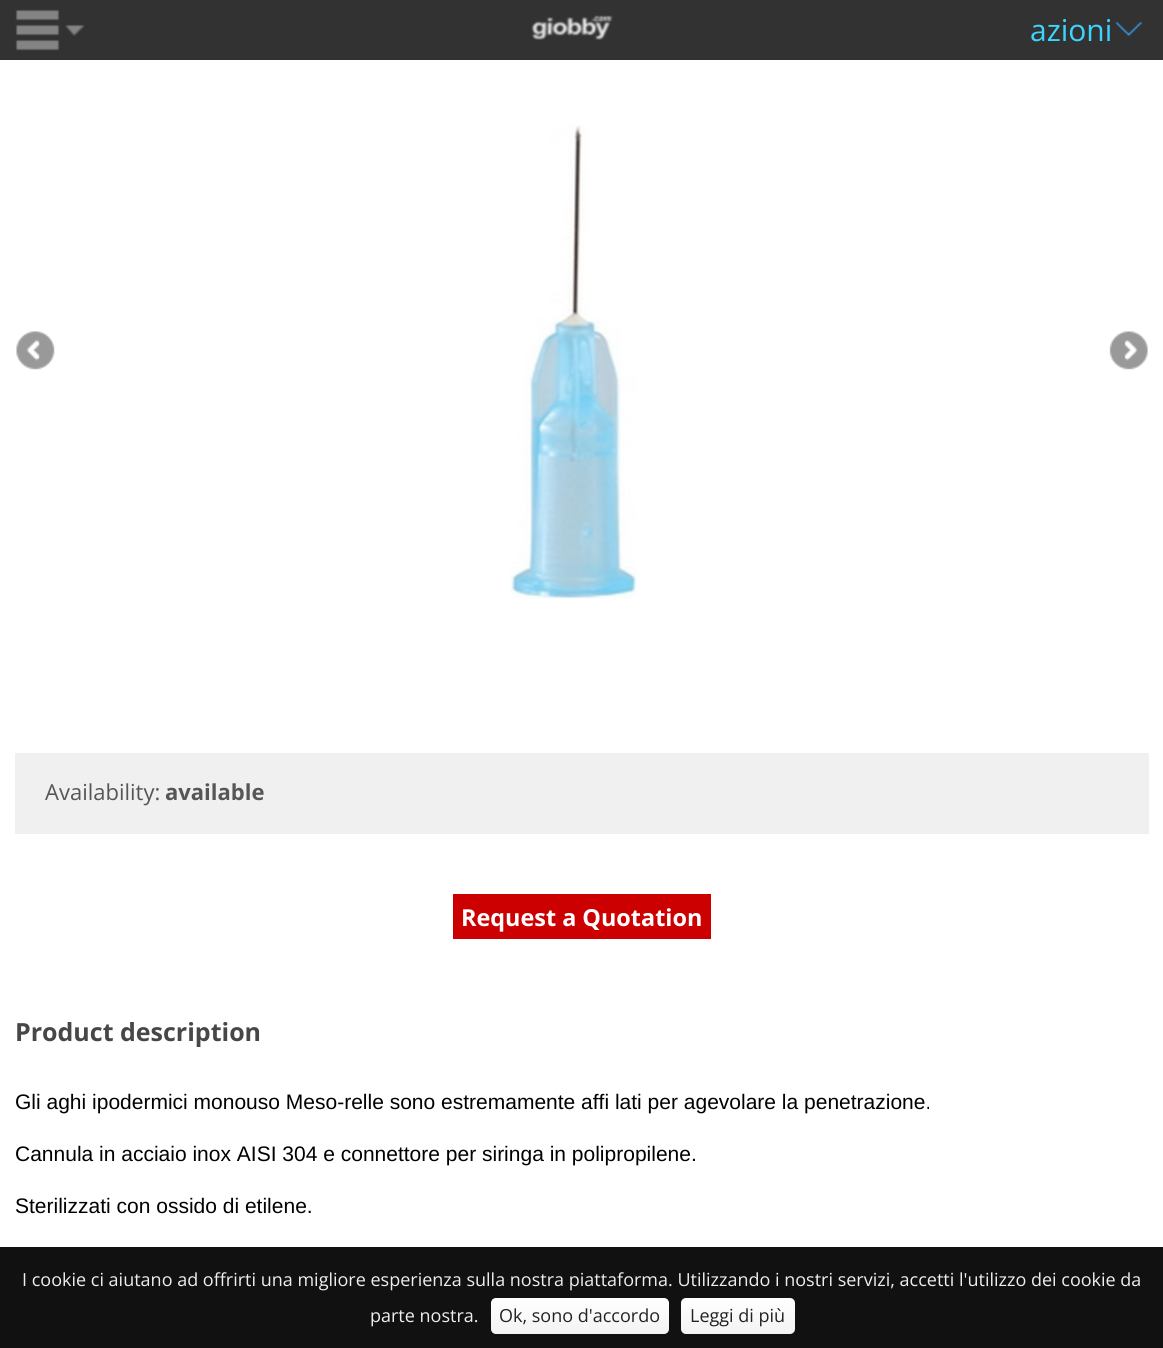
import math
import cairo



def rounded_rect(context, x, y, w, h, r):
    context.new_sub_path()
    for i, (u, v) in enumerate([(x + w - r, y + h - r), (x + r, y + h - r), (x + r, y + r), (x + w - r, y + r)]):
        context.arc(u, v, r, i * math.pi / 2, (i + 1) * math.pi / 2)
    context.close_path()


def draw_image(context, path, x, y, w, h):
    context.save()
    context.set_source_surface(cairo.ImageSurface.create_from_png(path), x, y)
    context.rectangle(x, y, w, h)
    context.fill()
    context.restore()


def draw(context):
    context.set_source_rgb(1, 1, 1)
    context.paint()
    context.set_source_rgb(50 / 255, 50 / 255, 50 / 255)
    context.rectangle(0, 0, 1163, 60)
    context.fill()
    draw_image(context, "images/1.png", 15, 9, 70, 42)
    draw_image(context, "images/2.png", 531, 15, 82, 25)
    draw_image(context, "images/3.png", 1115, 21, 27, 15)
    draw_image(context, "images/4.png", 510, 125, 127, 474)
    draw_image(context, "images/5.png", 16, 331, 39, 39)
    draw_image(context, "images/6.png", 1109, 331, 39, 39)
    context.set_source_rgb(241 / 255, 240 / 255, 240 / 255)
    context.rectangle(15, 753, 1134, 81)
    context.fill()
    context.set_source_rgb(204 / 255, 0, 0)
    context.rectangle(453, 894, 258, 45)
    context.fill()
    context.set_source_rgb(17 / 255, 17 / 255, 17 / 255)
    context.rectangle(0, 1247, 1163, 101)
    context.fill()
    gradient = cairo.LinearGradient(580, 1298, 580, 1334)
    gradient.add_color_stop_rgba(0, 1, 1, 1, 1)
    gradient.add_color_stop_rgba(1, 243 / 255, 243 / 255, 243 / 255, 1)
    context.set_source(gradient)
    rounded_rect(context, 491, 1298, 178, 36, 5)
    context.fill()
    gradient = cairo.LinearGradient(738, 1298, 738, 1334)
    gradient.add_color_stop_rgba(0, 1, 1, 1, 1)
    gradient.add_color_stop_rgba(1, 243 / 255, 243 / 255, 243 / 255, 1)
    context.set_source(gradient)
    rounded_rect(context, 681, 1298, 114, 36, 5)
    context.fill()
    context.select_font_face("Open Sans")
    context.set_font_size(30)
    context.set_source_rgb(60 / 255, 213 / 255, 253 / 255)
    context.move_to(1030, 41)
    context.show_text("azioni")
    context.set_font_size(22)
    context.set_source_rgb(87 / 255, 86 / 255, 86 / 255)
    context.move_to(45, 800)
    context.show_text("Availability:")
    context.select_font_face("Open Sans", cairo.FontSlant.NORMAL, cairo.FontWeight.BOLD)
    context.move_to(165, 800)
    context.show_text("available")
    context.set_font_size(23.4)
    context.set_source_rgb(1, 1, 1)
    context.move_to(461, 926)
    context.show_text("Request a Quotation")
    context.set_font_size(25)
    context.set_source_rgb(71 / 255, 71 / 255, 71 / 255)
    context.move_to(15, 1041)
    context.show_text("Product description")
    context.select_font_face("Liberation Sans")
    context.set_font_size(21)
    context.set_source_rgb(0, 0, 0)
    context.move_to(15, 1109)
    context.show_text("Gli aghi ipodermici monouso Meso-relle sono estremamente affi lati per agevolare la penetrazione.")
    context.move_to(15, 1161)
    context.show_text("Cannula in acciaio inox AISI 304 e connettore per siringa in polipropilene.")
    context.move_to(15, 1213)
    context.show_text("Sterilizzati con ossido di etilene.")
    context.select_font_face("Open Sans")
    context.set_font_size(18)
    context.set_source_rgb(238 / 255, 238 / 255, 238 / 255)
    context.move_to(22, 1286)
    context.show_text("I cookie ci aiutano ad offrirti una migliore esperienza sulla nostra piattaforma. Utilizzando i nostri servizi, accetti l'utilizzo dei cookie da")
    context.move_to(370, 1322)
    context.show_text("parte nostra.")
    context.set_source_rgb(34 / 255, 34 / 255, 34 / 255)
    context.move_to(499, 1322)
    context.show_text("Ok, sono d'accordo")
    context.move_to(690, 1322)
    context.show_text("Leggi di più")


surface = cairo.ImageSurface(cairo.Format.RGB24, 1163, 1348)
context = cairo.Context(surface)
options = cairo.FontOptions()
options.set_hint_metrics(cairo.HintMetrics.OFF)
options.set_hint_style(cairo.HintStyle.NONE)
context.set_font_options(options)
context.set_miter_limit(4)
draw(context)
surface.write_to_png("out.png")
